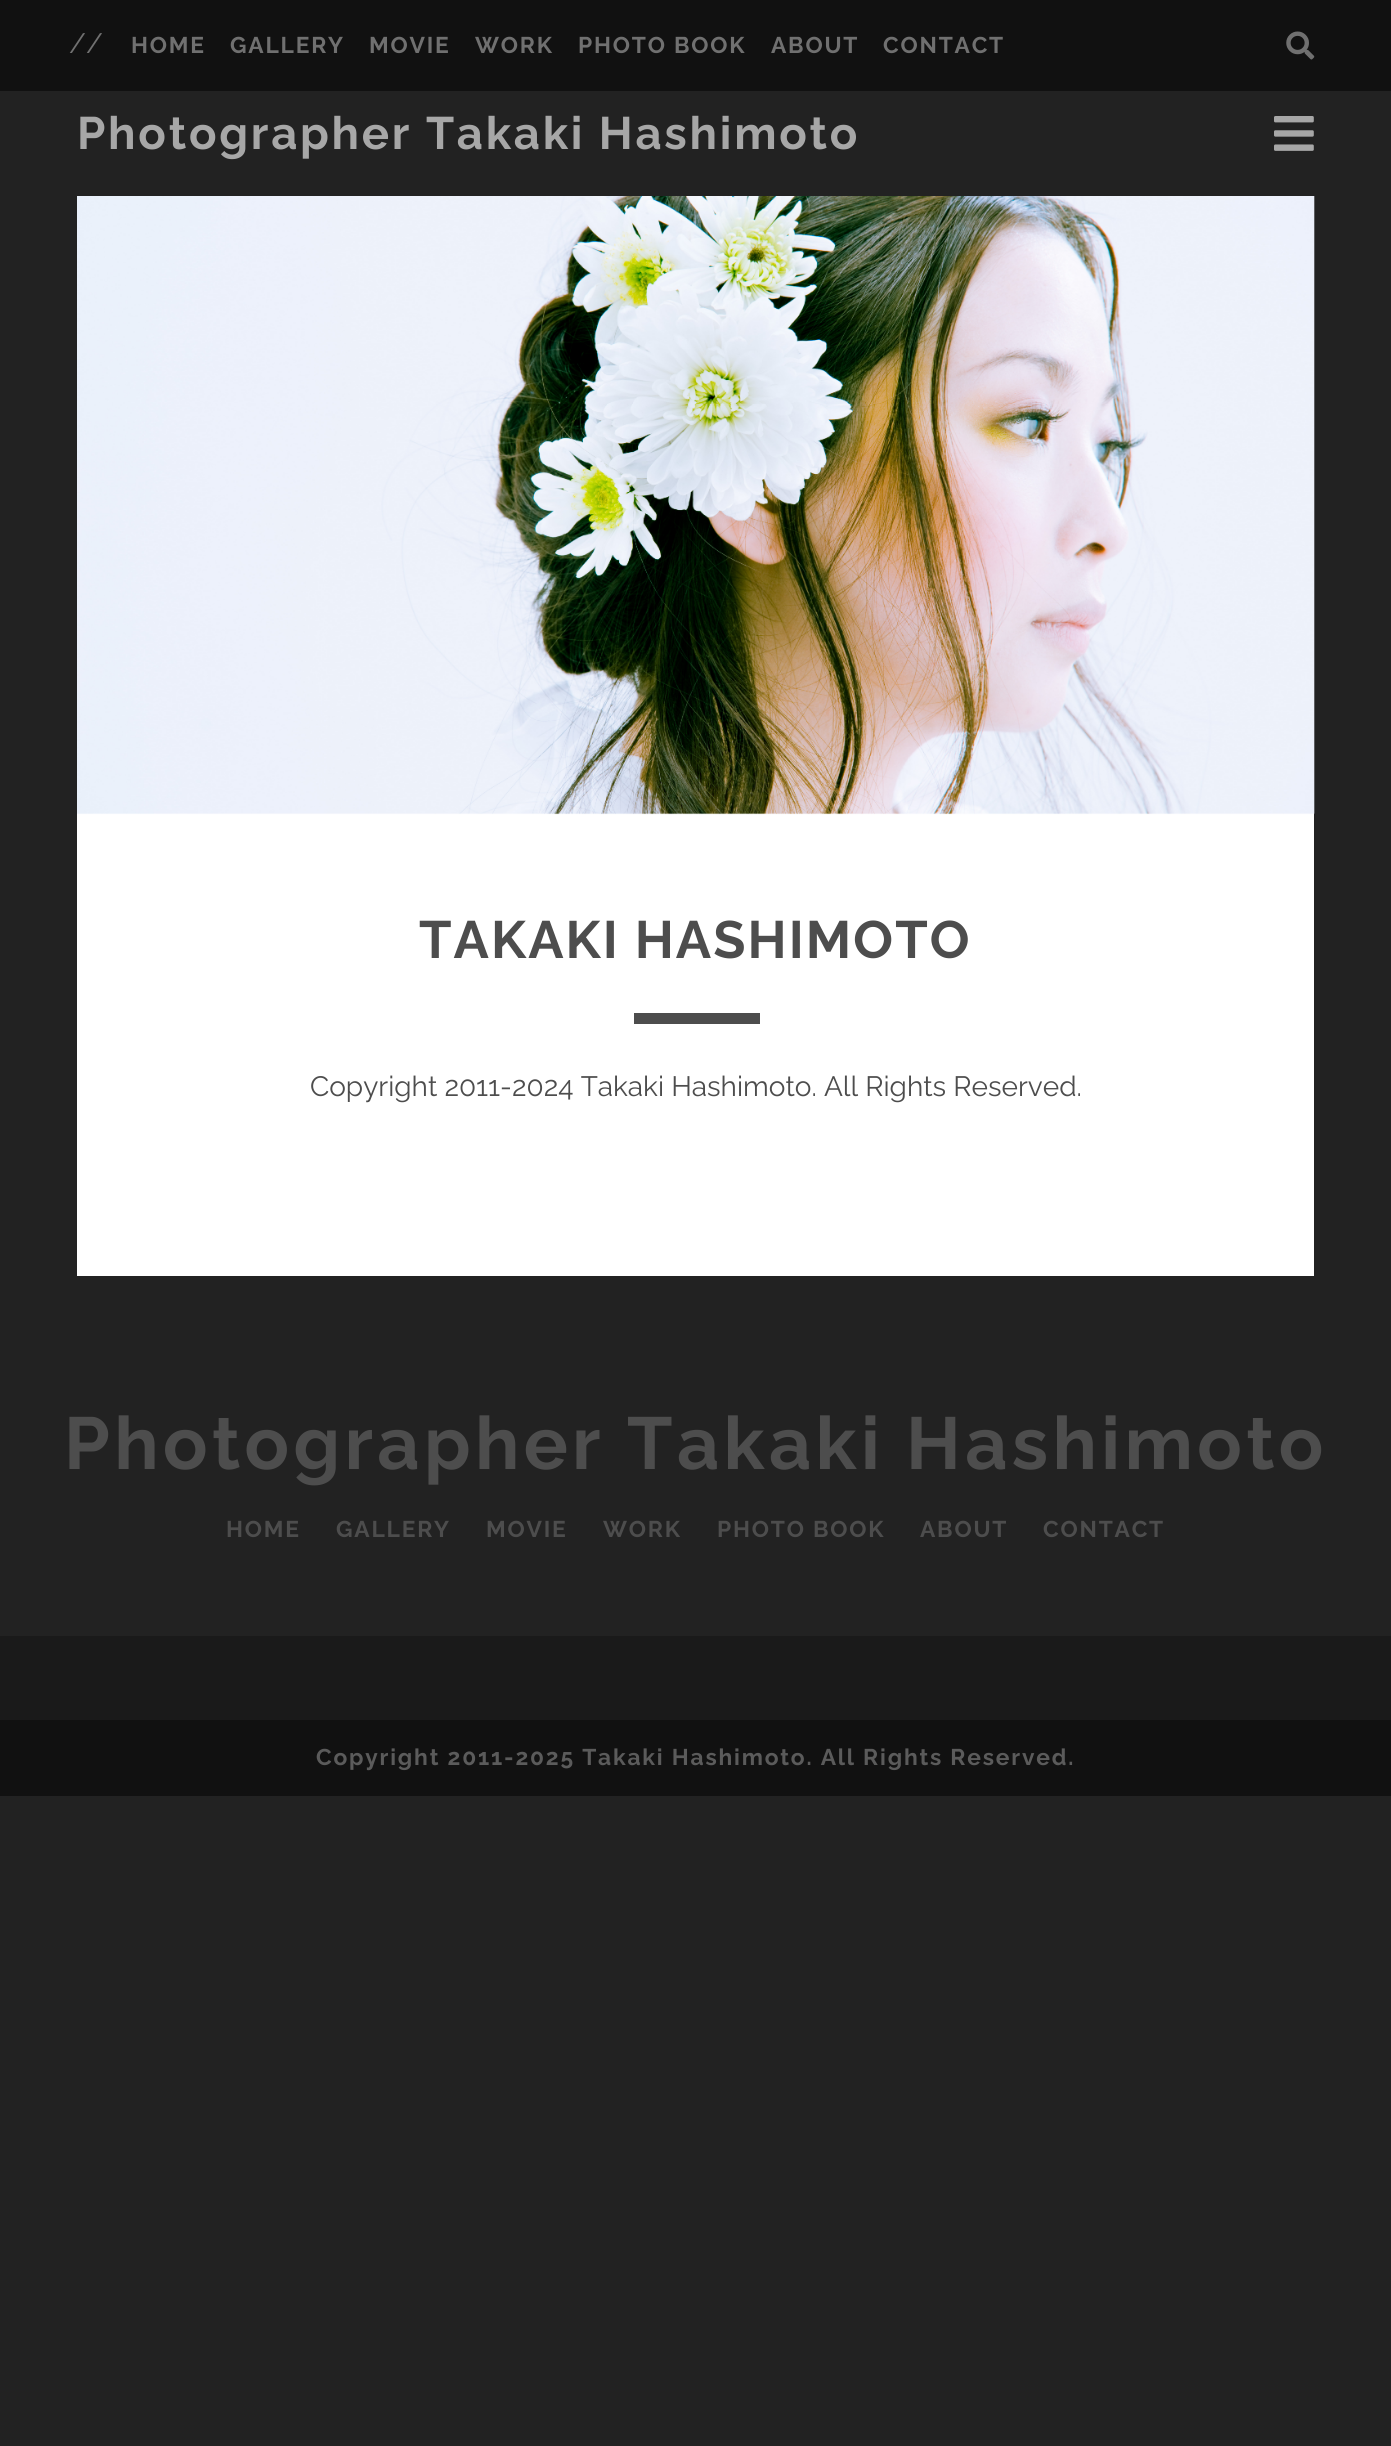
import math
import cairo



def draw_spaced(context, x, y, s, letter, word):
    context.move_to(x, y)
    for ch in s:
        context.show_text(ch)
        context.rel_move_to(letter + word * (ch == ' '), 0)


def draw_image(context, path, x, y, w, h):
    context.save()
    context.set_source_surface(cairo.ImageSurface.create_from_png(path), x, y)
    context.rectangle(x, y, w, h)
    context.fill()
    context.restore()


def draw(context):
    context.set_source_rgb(34 / 255, 34 / 255, 34 / 255)
    context.paint()
    context.set_source_rgb(17 / 255, 17 / 255, 17 / 255)
    context.rectangle(0, 0, 1391, 91)
    context.fill()
    draw_image(context, "images/1.png", 1286, 31, 29, 29)
    draw_image(context, "images/2.png", 1274, 116, 40, 35)
    context.set_source_rgb(1, 1, 1)
    context.rectangle(77, 813, 1237, 463)
    context.fill()
    draw_image(context, "images/3.png", 77, 196, 1238, 619)
    context.set_source_rgb(77 / 255, 77 / 255, 77 / 255)
    context.rectangle(634, 1013, 126, 11)
    context.fill()
    context.set_source_rgb(26 / 255, 26 / 255, 26 / 255)
    context.rectangle(0, 1636, 1391, 84)
    context.fill()
    context.set_source_rgb(17 / 255, 17 / 255, 17 / 255)
    context.rectangle(0, 1720, 1391, 76)
    context.fill()
    context.select_font_face("Raleway")
    context.set_font_size(28)
    context.set_source_rgb(112 / 255, 112 / 255, 112 / 255)
    context.move_to(69, 53)
    context.show_text("//")
    context.select_font_face("Raleway", cairo.FontSlant.NORMAL, cairo.FontWeight.BOLD)
    context.set_font_size(22.75)
    draw_spaced(context, 131, 53, "HOME", 1.82, 0)
    draw_spaced(context, 230, 53, "GALLERY", 1.82, 0)
    draw_spaced(context, 369, 53, "MOVIE", 1.82, 0)
    draw_spaced(context, 475, 53, "WORK", 1.82, 0)
    draw_spaced(context, 578, 53, "PHOTO BOOK", 1.82, 0)
    draw_spaced(context, 771, 53, "ABOUT", 1.82, 0)
    draw_spaced(context, 883, 53, "CONTACT", 1.82, 0)
    context.set_font_size(45.5)
    context.set_source_rgb(167 / 255, 167 / 255, 167 / 255)
    draw_spaced(context, 77, 149, "Photographer Takaki Hashimoto", 2.75, 0)
    context.set_font_size(52.5)
    context.set_source_rgb(77 / 255, 77 / 255, 77 / 255)
    draw_spaced(context, 419, 958, "TAKAKI HASHIMOTO", 2.1, 0)
    context.select_font_face("Raleway")
    context.set_font_size(28)
    context.move_to(310, 1096)
    context.show_text("Copyright 2011-2024 Takaki Hashimoto. All Rights Reserved.")
    context.select_font_face("Raleway", cairo.FontSlant.NORMAL, cairo.FontWeight.BOLD)
    context.set_font_size(73.5)
    draw_spaced(context, 64, 1469, "Photographer Takaki Hashimoto", 4.4, 0)
    context.set_font_size(22.75)
    draw_spaced(context, 226, 1537, "HOME", 1.82, 0)
    draw_spaced(context, 336, 1537, "GALLERY", 1.82, 0)
    draw_spaced(context, 486, 1537, "MOVIE", 1.82, 0)
    draw_spaced(context, 603, 1537, "WORK", 1.82, 0)
    draw_spaced(context, 717, 1537, "PHOTO BOOK", 1.82, 0)
    draw_spaced(context, 920, 1537, "ABOUT", 1.82, 0)
    draw_spaced(context, 1043, 1537, "CONTACT", 1.82, 0)
    context.set_source_rgb(91 / 255, 91 / 255, 91 / 255)
    draw_spaced(context, 316, 1765, "Copyright 2011-2025 Takaki Hashimoto. All Rights Reserved.", 1.82, 0)


surface = cairo.ImageSurface(cairo.Format.RGB24, 1391, 2446)
context = cairo.Context(surface)
options = cairo.FontOptions()
options.set_hint_metrics(cairo.HintMetrics.OFF)
options.set_hint_style(cairo.HintStyle.NONE)
context.set_font_options(options)
context.set_miter_limit(4)
draw(context)
surface.write_to_png("out.png")
